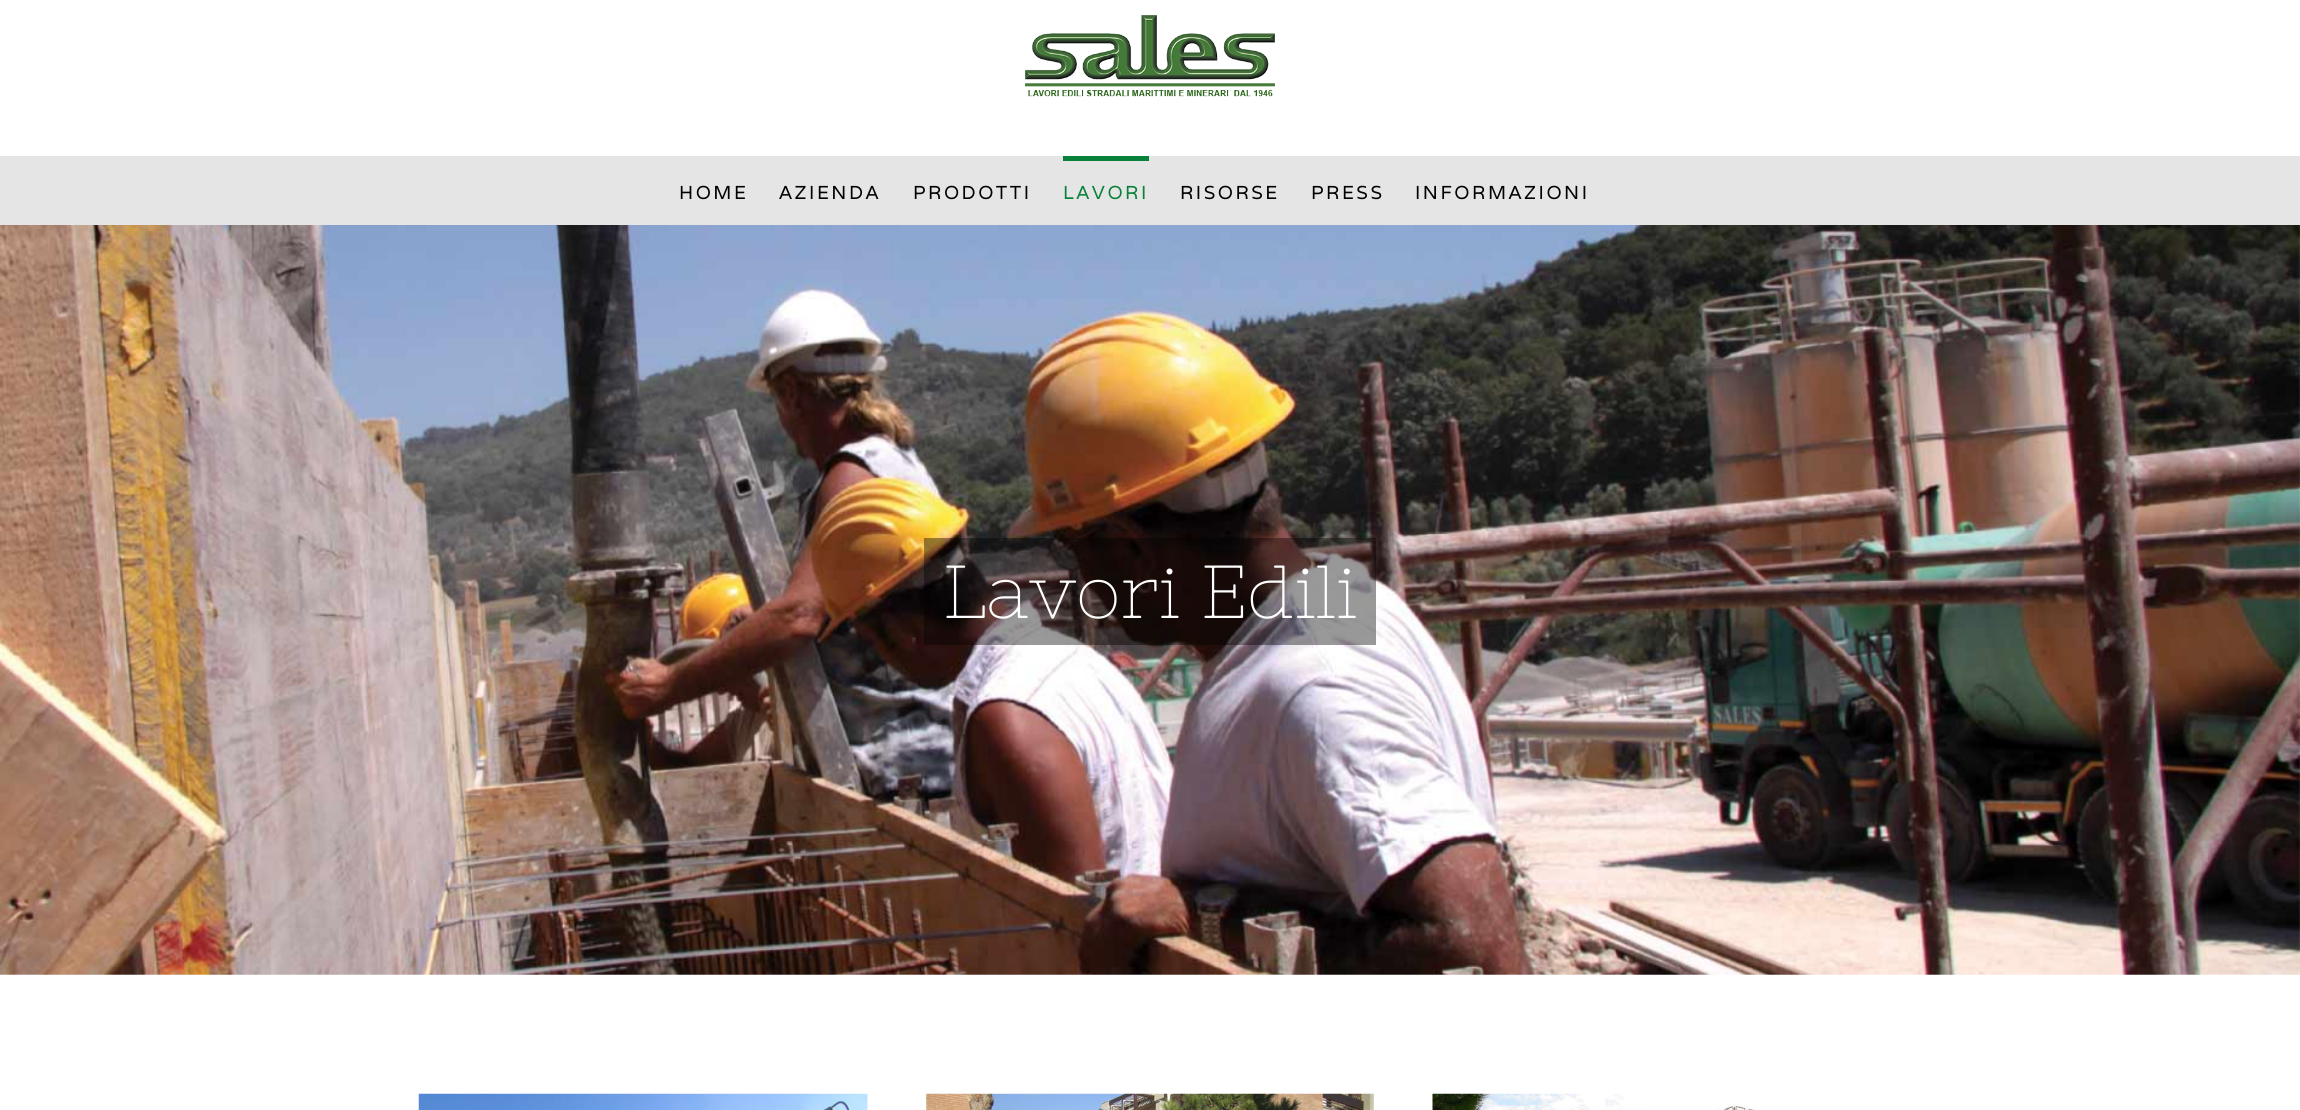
import math
import cairo



def draw_spaced(context, x, y, s, letter, word):
    context.move_to(x, y)
    for ch in s:
        context.show_text(ch)
        context.rel_move_to(letter + word * (ch == ' '), 0)


def draw_image(context, path, x, y, w, h):
    context.save()
    context.set_source_surface(cairo.ImageSurface.create_from_png(path), x, y)
    context.rectangle(x, y, w, h)
    context.fill()
    context.restore()


def draw(context):
    context.set_source_rgb(1, 1, 1)
    context.paint()
    draw_image(context, "images/1.png", 1025, 15, 250, 82)
    context.set_source_rgb(229 / 255, 229 / 255, 229 / 255)
    context.rectangle(0, 156, 2300, 69)
    context.fill()
    context.set_source_rgb(8 / 255, 129 / 255, 58 / 255)
    context.rectangle(1063, 156, 86, 5)
    context.fill()
    draw_image(context, "images/2.png", 0, 225, 2300, 750)
    context.set_source_rgba(0, 0, 0, 0.4)
    context.rectangle(924, 538, 452, 107)
    context.fill()
    draw_image(context, "images/3.png", 418, 1093, 450, 17)
    draw_image(context, "images/4.png", 926, 1093, 448, 17)
    draw_image(context, "images/5.png", 1432, 1093, 325, 17)
    context.select_font_face("Varela")
    context.set_font_size(18.75)
    context.set_source_rgb(0, 0, 0)
    draw_spaced(context, 679, 199, "HOME", 2.5, 0)
    draw_spaced(context, 779, 199, "AZIENDA", 2.5, 0)
    draw_spaced(context, 913, 199, "PRODOTTI", 2.5, 0)
    context.set_source_rgb(8 / 255, 129 / 255, 58 / 255)
    draw_spaced(context, 1063, 199, "LAVORI", 2.5, 0)
    context.set_source_rgb(0, 0, 0)
    draw_spaced(context, 1180, 199, "RISORSE", 2.5, 0)
    draw_spaced(context, 1311, 199, "PRESS", 2.5, 0)
    draw_spaced(context, 1415, 199, "INFORMAZIONI", 2.5, 0)
    context.select_font_face("Nixie One")
    context.set_font_size(75)
    context.set_source_rgb(1, 1, 1)
    context.move_to(943, 618)
    context.show_text("Lavori Edili")


surface = cairo.ImageSurface(cairo.Format.RGB24, 2300, 1110)
context = cairo.Context(surface)
options = cairo.FontOptions()
options.set_hint_metrics(cairo.HintMetrics.OFF)
options.set_hint_style(cairo.HintStyle.NONE)
context.set_font_options(options)
context.set_miter_limit(4)
draw(context)
surface.write_to_png("out.png")
